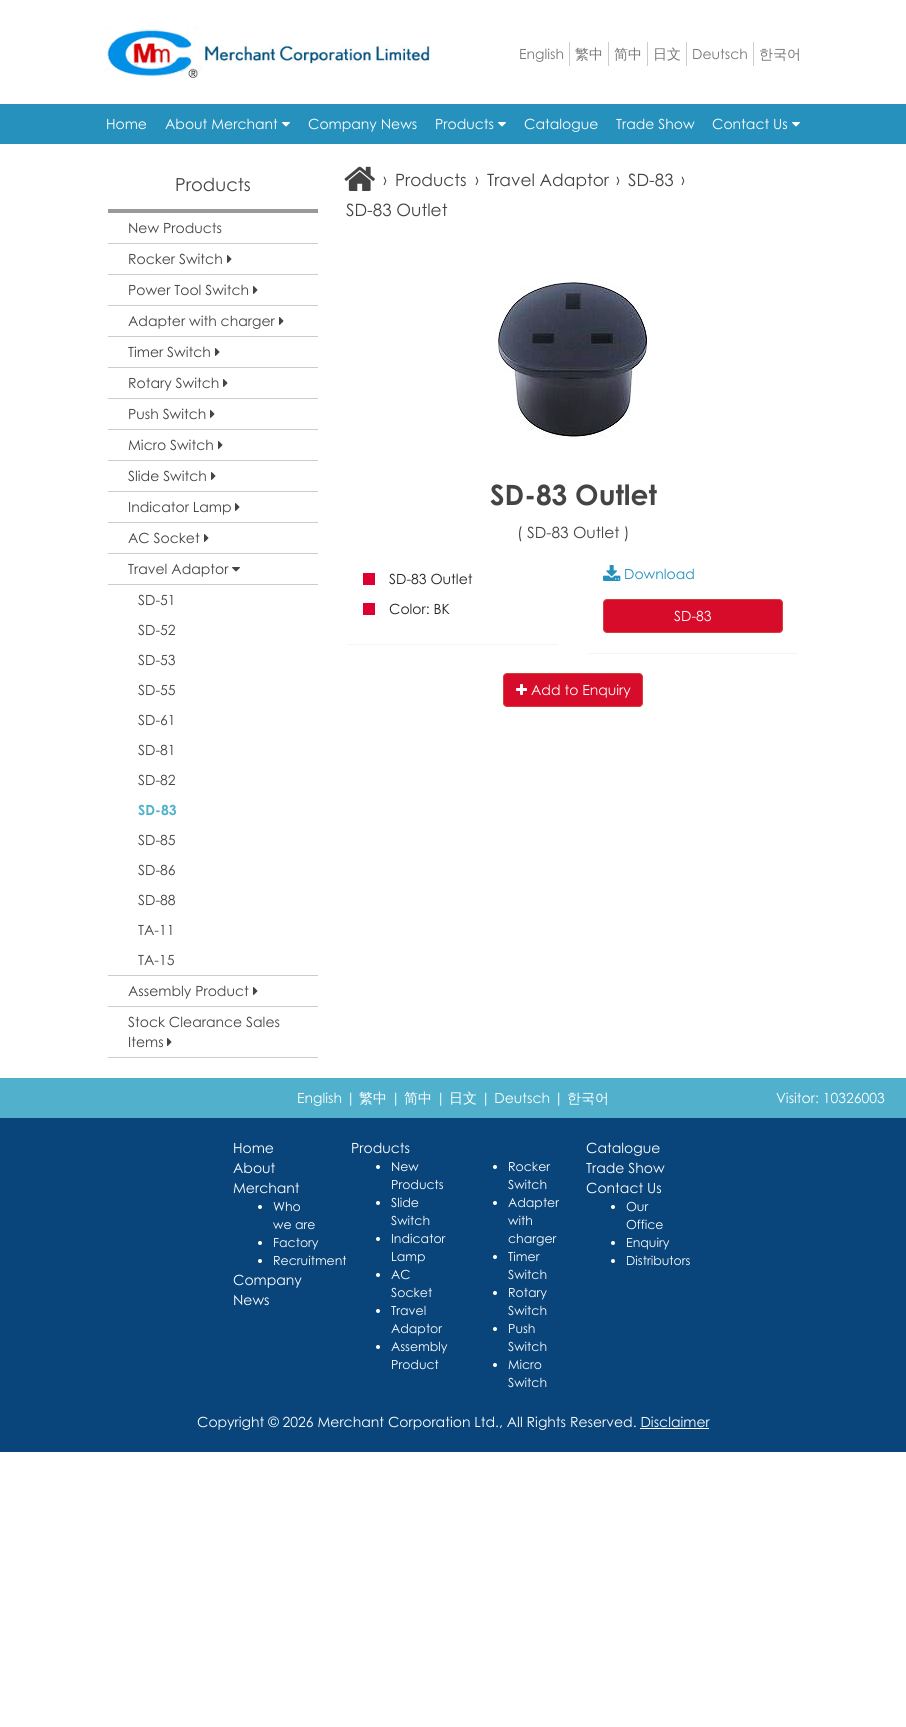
import math
import cairo



def rounded_rect(context, x, y, w, h, r):
    context.new_sub_path()
    for i, (u, v) in enumerate([(x + w - r, y + h - r), (x + r, y + h - r), (x + r, y + r), (x + w - r, y + r)]):
        context.arc(u, v, r, i * math.pi / 2, (i + 1) * math.pi / 2)
    context.close_path()


def draw_shadow(context, x, y, w, h, r, blur, alpha):
    context.push_group_with_content(cairo.Content.ALPHA)
    context.set_operator(cairo.Operator.SOURCE)
    for i in range(15, -16, -2):
        e = blur * i / 6
        if min(w, h) + 2 * e > 0:
            context.set_source_rgba(0, 0, 0, alpha * math.erfc((i - 1) / 8.5) / 2)
            rounded_rect(context, x - e, y - e, w + 2 * e, h + 2 * e, max(0, min(r + e + blur * .6, min(w, h) / 2 + e)))
            context.fill()
    context.mask(context.pop_group())


def draw_image(context, path, x, y, w, h):
    context.save()
    context.set_source_surface(cairo.ImageSurface.create_from_png(path), x, y)
    context.rectangle(x, y, w, h)
    context.fill()
    context.restore()


def draw(context):
    context.set_source_rgb(1, 1, 1)
    context.paint()
    draw_image(context, "images/1.png", 104, 27, 326, 51)
    context.set_source_rgb(204 / 255, 204 / 255, 204 / 255)
    context.rectangle(569, 42, 1, 24)
    context.fill()
    context.rectangle(608, 42, 1, 24)
    context.fill()
    context.rectangle(647, 42, 1, 24)
    context.fill()
    context.rectangle(686, 42, 1, 24)
    context.fill()
    context.rectangle(753, 42, 1, 24)
    context.fill()
    context.set_source_rgb(38 / 255, 145 / 255, 188 / 255)
    context.rectangle(0, 104, 906, 40)
    context.fill()
    draw_image(context, "images/2.png", 282, 122, 8, 5)
    draw_image(context, "images/2.png", 498, 122, 8, 5)
    draw_image(context, "images/2.png", 792, 122, 8, 5)
    context.set_source_rgb(153 / 255, 153 / 255, 153 / 255)
    context.rectangle(108, 209, 210, 4)
    context.fill()
    context.set_source_rgb(204 / 255, 204 / 255, 204 / 255)
    context.rectangle(108, 243, 210, 1)
    context.fill()
    context.rectangle(108, 274, 210, 1)
    context.fill()
    draw_image(context, "images/3.png", 227, 255, 5, 8)
    context.rectangle(108, 305, 210, 1)
    context.fill()
    draw_image(context, "images/3.png", 253, 286, 5, 8)
    context.rectangle(108, 336, 210, 1)
    context.fill()
    draw_image(context, "images/3.png", 279, 317, 5, 8)
    context.rectangle(108, 367, 210, 1)
    context.fill()
    draw_image(context, "images/3.png", 215, 348, 5, 8)
    context.rectangle(108, 398, 210, 1)
    context.fill()
    draw_image(context, "images/3.png", 223, 379, 5, 8)
    context.rectangle(108, 429, 210, 1)
    context.fill()
    draw_image(context, "images/3.png", 210, 410, 5, 8)
    context.rectangle(108, 460, 210, 1)
    context.fill()
    draw_image(context, "images/3.png", 218, 441, 5, 8)
    context.rectangle(108, 491, 210, 1)
    context.fill()
    draw_image(context, "images/3.png", 211, 472, 5, 8)
    context.rectangle(108, 522, 210, 1)
    context.fill()
    draw_image(context, "images/3.png", 235, 503, 5, 8)
    context.rectangle(108, 553, 210, 1)
    context.fill()
    draw_image(context, "images/3.png", 204, 534, 5, 8)
    context.rectangle(108, 584, 210, 1)
    context.fill()
    draw_image(context, "images/4.png", 232, 567, 8, 5)
    context.rectangle(108, 975, 210, 1)
    context.fill()
    context.rectangle(108, 1006, 210, 1)
    context.fill()
    draw_image(context, "images/3.png", 253, 987, 5, 8)
    context.rectangle(108, 1057, 210, 1)
    context.fill()
    draw_image(context, "images/3.png", 167, 1038, 5, 8)
    draw_image(context, "images/5.png", 344, 166, 31, 25)
    draw_image(context, "images/6.png", 495, 279, 152, 160)
    context.save()
    context.rectangle(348, 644, 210, 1)
    context.clip()
    context.set_source_rgb(0, 0, 0)
    draw_shadow(context, 348, 555, 210, 90, 0, 0.5, 0.05)
    context.restore()
    context.set_source_rgb(221 / 255, 0, 49 / 255)
    context.rectangle(363, 573, 12, 12)
    context.fill()
    context.rectangle(363, 603, 12, 12)
    context.fill()
    context.save()
    context.rectangle(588, 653, 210, 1)
    context.clip()
    context.set_source_rgb(0, 0, 0)
    draw_shadow(context, 588, 555, 210, 99, 0, 0.5, 0.05)
    context.restore()
    draw_image(context, "images/7.png", 603, 565, 18, 16)
    context.set_source_rgb(215 / 255, 11 / 255, 42 / 255)
    rounded_rect(context, 603.5, 599.5, 179, 33, 3.5)
    context.fill_preserve()
    context.set_source_rgb(212 / 255, 63 / 255, 58 / 255)
    context.set_line_width(1)
    context.stroke()
    context.set_source_rgb(215 / 255, 11 / 255, 42 / 255)
    rounded_rect(context, 503.5, 673.5, 139, 33, 3.5)
    context.fill_preserve()
    context.set_source_rgb(212 / 255, 63 / 255, 58 / 255)
    context.stroke()
    draw_image(context, "images/8.png", 516, 684, 11, 11)
    context.set_source_rgb(9 / 255, 69 / 255, 123 / 255)
    context.rectangle(0, 1118, 906, 334)
    context.fill()
    context.set_source_rgb(81 / 255, 177 / 255, 205 / 255)
    context.rectangle(0, 1078, 906, 40)
    context.fill()
    context.set_source_rgb(1, 1, 1)
    context.arc(260, 1207, 2, 0, 2 * math.pi)
    context.fill()
    context.arc(260, 1243, 2, 0, 2 * math.pi)
    context.fill()
    context.arc(260, 1261, 2, 0, 2 * math.pi)
    context.fill()
    context.arc(378, 1167, 2, 0, 2 * math.pi)
    context.fill()
    context.arc(378, 1203, 2, 0, 2 * math.pi)
    context.fill()
    context.arc(378, 1239, 2, 0, 2 * math.pi)
    context.fill()
    context.arc(378, 1275, 2, 0, 2 * math.pi)
    context.fill()
    context.arc(378, 1311, 2, 0, 2 * math.pi)
    context.fill()
    context.arc(378, 1347, 2, 0, 2 * math.pi)
    context.fill()
    context.arc(495, 1167, 2, 0, 2 * math.pi)
    context.fill()
    context.arc(495, 1203, 2, 0, 2 * math.pi)
    context.fill()
    context.arc(495, 1257, 2, 0, 2 * math.pi)
    context.fill()
    context.arc(495, 1293, 2, 0, 2 * math.pi)
    context.fill()
    context.arc(495, 1329, 2, 0, 2 * math.pi)
    context.fill()
    context.arc(495, 1365, 2, 0, 2 * math.pi)
    context.fill()
    context.arc(613, 1207, 2, 0, 2 * math.pi)
    context.fill()
    context.arc(613, 1243, 2, 0, 2 * math.pi)
    context.fill()
    context.arc(613, 1261, 2, 0, 2 * math.pi)
    context.fill()
    context.rectangle(640, 1428, 69, 1)
    context.fill()
    context.select_font_face("Century Gothic")
    context.set_font_size(14)
    context.set_source_rgb(119 / 255, 119 / 255, 119 / 255)
    context.move_to(519, 59)
    context.show_text("English")
    context.select_font_face("WenQuanYi Zen Hei Medium")
    context.move_to(575, 59)
    context.show_text("繁中")
    context.move_to(614, 59)
    context.show_text("简中")
    context.move_to(653, 59)
    context.show_text("日文")
    context.select_font_face("Century Gothic")
    context.move_to(692, 59)
    context.show_text("Deutsch")
    context.select_font_face("WenQuanYi Zen Hei Medium")
    context.move_to(759, 59)
    context.show_text("한국어")
    context.select_font_face("Century Gothic")
    context.set_source_rgb(1, 1, 1)
    context.move_to(106, 129)
    context.show_text("Home")
    context.move_to(165, 129)
    context.show_text("About Merchant")
    context.move_to(308, 129)
    context.show_text("Company News")
    context.move_to(435, 129)
    context.show_text("Products")
    context.move_to(524, 129)
    context.show_text("Catalogue")
    context.move_to(616, 129)
    context.show_text("Trade Show")
    context.move_to(712, 129)
    context.show_text("Contact Us")
    context.set_font_size(18)
    context.set_source_rgb(68 / 255, 68 / 255, 68 / 255)
    context.move_to(175, 191)
    context.show_text("Products")
    context.set_font_size(14)
    context.move_to(128, 233)
    context.show_text("New Products")
    context.move_to(128, 264)
    context.show_text("Rocker Switch")
    context.move_to(128, 295)
    context.show_text("Power Tool Switch")
    context.move_to(128, 326)
    context.show_text("Adapter with charger")
    context.move_to(128, 357)
    context.show_text("Timer Switch")
    context.move_to(128, 388)
    context.show_text("Rotary Switch")
    context.move_to(128, 419)
    context.show_text("Push Switch")
    context.move_to(128, 450)
    context.show_text("Micro Switch")
    context.move_to(128, 481)
    context.show_text("Slide Switch")
    context.move_to(128, 512)
    context.show_text("Indicator Lamp")
    context.move_to(128, 543)
    context.show_text("AC Socket")
    context.move_to(128, 574)
    context.show_text("Travel Adaptor")
    context.move_to(138, 605)
    context.show_text("SD-51")
    context.move_to(138, 635)
    context.show_text("SD-52")
    context.move_to(138, 665)
    context.show_text("SD-53")
    context.move_to(138, 695)
    context.show_text("SD-55")
    context.move_to(138, 725)
    context.show_text("SD-61")
    context.move_to(138, 755)
    context.show_text("SD-81")
    context.move_to(138, 785)
    context.show_text("SD-82")
    context.select_font_face("Century Gothic", cairo.FontSlant.NORMAL, cairo.FontWeight.BOLD)
    context.set_source_rgb(81 / 255, 177 / 255, 205 / 255)
    context.move_to(138, 815)
    context.show_text("SD-83")
    context.select_font_face("Century Gothic")
    context.set_source_rgb(68 / 255, 68 / 255, 68 / 255)
    context.move_to(138, 845)
    context.show_text("SD-85")
    context.move_to(138, 875)
    context.show_text("SD-86")
    context.move_to(138, 905)
    context.show_text("SD-88")
    context.move_to(138, 935)
    context.show_text("TA-11")
    context.move_to(138, 965)
    context.show_text("TA-15")
    context.move_to(128, 996)
    context.show_text("Assembly Product")
    context.move_to(128, 1027)
    context.show_text("Stock Clearance Sales")
    context.move_to(128, 1047)
    context.show_text("Items")
    context.set_font_size(15.5)
    context.move_to(383, 185)
    context.show_text("›")
    context.set_font_size(17)
    context.move_to(395, 186)
    context.show_text("Products")
    context.set_font_size(15.5)
    context.move_to(475, 185)
    context.show_text("›")
    context.set_font_size(17)
    context.move_to(487, 186)
    context.show_text("Travel Adaptor")
    context.set_font_size(15.5)
    context.move_to(616, 185)
    context.show_text("›")
    context.set_font_size(17)
    context.move_to(628, 186)
    context.show_text("SD-83")
    context.set_font_size(15.5)
    context.move_to(681, 185)
    context.show_text("›")
    context.set_font_size(17)
    context.move_to(346, 216)
    context.show_text("SD-83 Outlet")
    context.select_font_face("Century Gothic", cairo.FontSlant.NORMAL, cairo.FontWeight.BOLD)
    context.set_font_size(28)
    context.move_to(490, 505)
    context.show_text("SD-83 Outlet")
    context.select_font_face("Century Gothic")
    context.set_font_size(15.5)
    context.move_to(517, 538)
    context.show_text("( SD-83 Outlet )")
    context.set_font_size(14)
    context.set_source_rgb(34 / 255, 34 / 255, 34 / 255)
    context.move_to(389, 584)
    context.show_text("SD-83 Outlet")
    context.move_to(389, 614)
    context.show_text("Color: BK")
    context.set_source_rgb(38 / 255, 145 / 255, 188 / 255)
    context.move_to(624, 579)
    context.show_text("Download")
    context.set_source_rgb(1, 1, 1)
    context.move_to(674, 621)
    context.show_text("SD-83")
    context.move_to(531, 695)
    context.show_text("Add to Enquiry")
    context.move_to(297, 1103)
    context.show_text("English |")
    context.select_font_face("WenQuanYi Zen Hei Medium")
    context.move_to(359, 1103)
    context.show_text("繁中")
    context.select_font_face("Century Gothic")
    context.move_to(391, 1103)
    context.show_text("|")
    context.select_font_face("WenQuanYi Zen Hei Medium")
    context.move_to(404, 1103)
    context.show_text("简中")
    context.select_font_face("Century Gothic")
    context.move_to(436, 1103)
    context.show_text("|")
    context.select_font_face("WenQuanYi Zen Hei Medium")
    context.move_to(449, 1103)
    context.show_text("日文")
    context.select_font_face("Century Gothic")
    context.move_to(481, 1103)
    context.show_text("| Deutsch |")
    context.select_font_face("WenQuanYi Zen Hei Medium")
    context.move_to(567, 1103)
    context.show_text("한국어")
    context.select_font_face("Century Gothic")
    context.move_to(776, 1103)
    context.show_text("Visitor: 10326003")
    context.move_to(233, 1153)
    context.show_text("Home")
    context.move_to(233, 1173)
    context.show_text("About")
    context.move_to(233, 1193)
    context.show_text("Merchant")
    context.set_font_size(12.5)
    context.move_to(273, 1211)
    context.show_text("Who")
    context.move_to(273, 1229)
    context.show_text("we are")
    context.move_to(273, 1247)
    context.show_text("Factory")
    context.move_to(273, 1265)
    context.show_text("Recruitment")
    context.set_font_size(14)
    context.move_to(233, 1285)
    context.show_text("Company")
    context.move_to(233, 1305)
    context.show_text("News")
    context.move_to(351, 1153)
    context.show_text("Products")
    context.set_font_size(12.5)
    context.move_to(391, 1171)
    context.show_text("New")
    context.move_to(391, 1189)
    context.show_text("Products")
    context.move_to(391, 1207)
    context.show_text("Slide")
    context.move_to(391, 1225)
    context.show_text("Switch")
    context.move_to(391, 1243)
    context.show_text("Indicator")
    context.move_to(391, 1261)
    context.show_text("Lamp")
    context.move_to(391, 1279)
    context.show_text("AC")
    context.move_to(391, 1297)
    context.show_text("Socket")
    context.move_to(391, 1315)
    context.show_text("Travel")
    context.move_to(391, 1333)
    context.show_text("Adaptor")
    context.move_to(391, 1351)
    context.show_text("Assembly")
    context.move_to(391, 1369)
    context.show_text("Product")
    context.move_to(508, 1171)
    context.show_text("Rocker")
    context.move_to(508, 1189)
    context.show_text("Switch")
    context.move_to(508, 1207)
    context.show_text("Adapter")
    context.move_to(508, 1225)
    context.show_text("with")
    context.move_to(508, 1243)
    context.show_text("charger")
    context.move_to(508, 1261)
    context.show_text("Timer")
    context.move_to(508, 1279)
    context.show_text("Switch")
    context.move_to(508, 1297)
    context.show_text("Rotary")
    context.move_to(508, 1315)
    context.show_text("Switch")
    context.move_to(508, 1333)
    context.show_text("Push")
    context.move_to(508, 1351)
    context.show_text("Switch")
    context.move_to(508, 1369)
    context.show_text("Micro")
    context.move_to(508, 1387)
    context.show_text("Switch")
    context.set_font_size(14)
    context.move_to(586, 1153)
    context.show_text("Catalogue")
    context.move_to(586, 1173)
    context.show_text("Trade Show")
    context.move_to(586, 1193)
    context.show_text("Contact Us")
    context.set_font_size(12.5)
    context.move_to(626, 1211)
    context.show_text("Our")
    context.move_to(626, 1229)
    context.show_text("Office")
    context.move_to(626, 1247)
    context.show_text("Enquiry")
    context.move_to(626, 1265)
    context.show_text("Distributors")
    context.set_font_size(14)
    context.move_to(197, 1427)
    context.show_text("Copyright © 2026 Merchant Corporation Ltd., All Rights Reserved. Disclaimer")


surface = cairo.ImageSurface(cairo.Format.RGB24, 906, 1727)
context = cairo.Context(surface)
options = cairo.FontOptions()
options.set_hint_metrics(cairo.HintMetrics.OFF)
options.set_hint_style(cairo.HintStyle.NONE)
context.set_font_options(options)
context.set_miter_limit(4)
draw(context)
surface.write_to_png("out.png")
